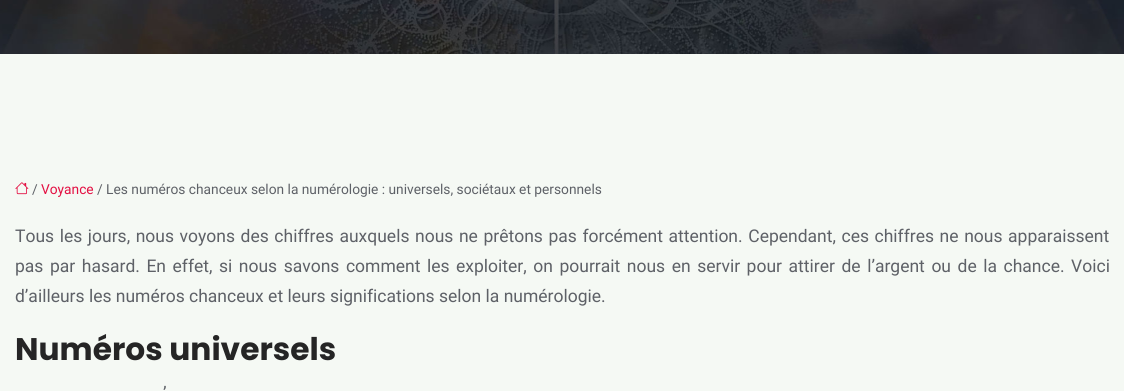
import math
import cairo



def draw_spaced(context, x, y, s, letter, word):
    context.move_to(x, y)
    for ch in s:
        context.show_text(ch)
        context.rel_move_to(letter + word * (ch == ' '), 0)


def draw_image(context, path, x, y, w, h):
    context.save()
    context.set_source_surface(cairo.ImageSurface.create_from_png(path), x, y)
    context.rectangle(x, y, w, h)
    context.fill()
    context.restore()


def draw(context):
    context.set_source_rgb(245 / 255, 249 / 255, 244 / 255)
    context.paint()
    draw_image(context, "images/1.png", 0, 0, 1124, 54)
    draw_image(context, "images/2.png", 15, 182, 14, 13)
    context.select_font_face("Roboto")
    context.set_font_size(13.75)
    context.set_source_rgb(94 / 255, 97 / 255, 103 / 255)
    context.move_to(32, 194)
    context.show_text("/")
    context.set_source_rgb(227 / 255, 16 / 255, 67 / 255)
    context.move_to(41, 194)
    context.show_text("Voyance")
    context.set_source_rgb(94 / 255, 97 / 255, 103 / 255)
    context.move_to(97, 194)
    context.show_text("/ Les numéros chanceux selon la numérologie : universels, sociétaux et personnels")
    context.set_font_size(17.5)
    draw_spaced(context, 15, 242, "Tous les jours, nous voyons des chiffres auxquels nous ne prêtons pas forcément attention. Cependant, ces chiffres ne nous apparaissent", 0, 1.25)
    draw_spaced(context, 15, 272, "pas par hasard. En effet, si nous savons comment les exploiter, on pourrait nous en servir pour attirer de l’argent ou de la chance. Voici", 0, 2.2)
    context.move_to(15, 302)
    context.show_text("d’ailleurs les numéros chanceux et leurs significations selon la numérologie.")
    context.select_font_face("Poppins", cairo.FontSlant.NORMAL, cairo.FontWeight.BOLD)
    context.set_font_size(31.25)
    context.set_source_rgb(37 / 255, 37 / 255, 37 / 255)
    context.move_to(15, 360)
    context.show_text("Numéros universels")
    context.select_font_face("Roboto")
    context.set_font_size(17.5)
    context.set_source_rgb(94 / 255, 97 / 255, 103 / 255)
    draw_spaced(context, 163, 399, "’", 0, 2)


surface = cairo.ImageSurface(cairo.Format.RGB24, 1124, 391)
context = cairo.Context(surface)
options = cairo.FontOptions()
options.set_hint_metrics(cairo.HintMetrics.OFF)
options.set_hint_style(cairo.HintStyle.NONE)
context.set_font_options(options)
context.set_miter_limit(4)
draw(context)
surface.write_to_png("out.png")
